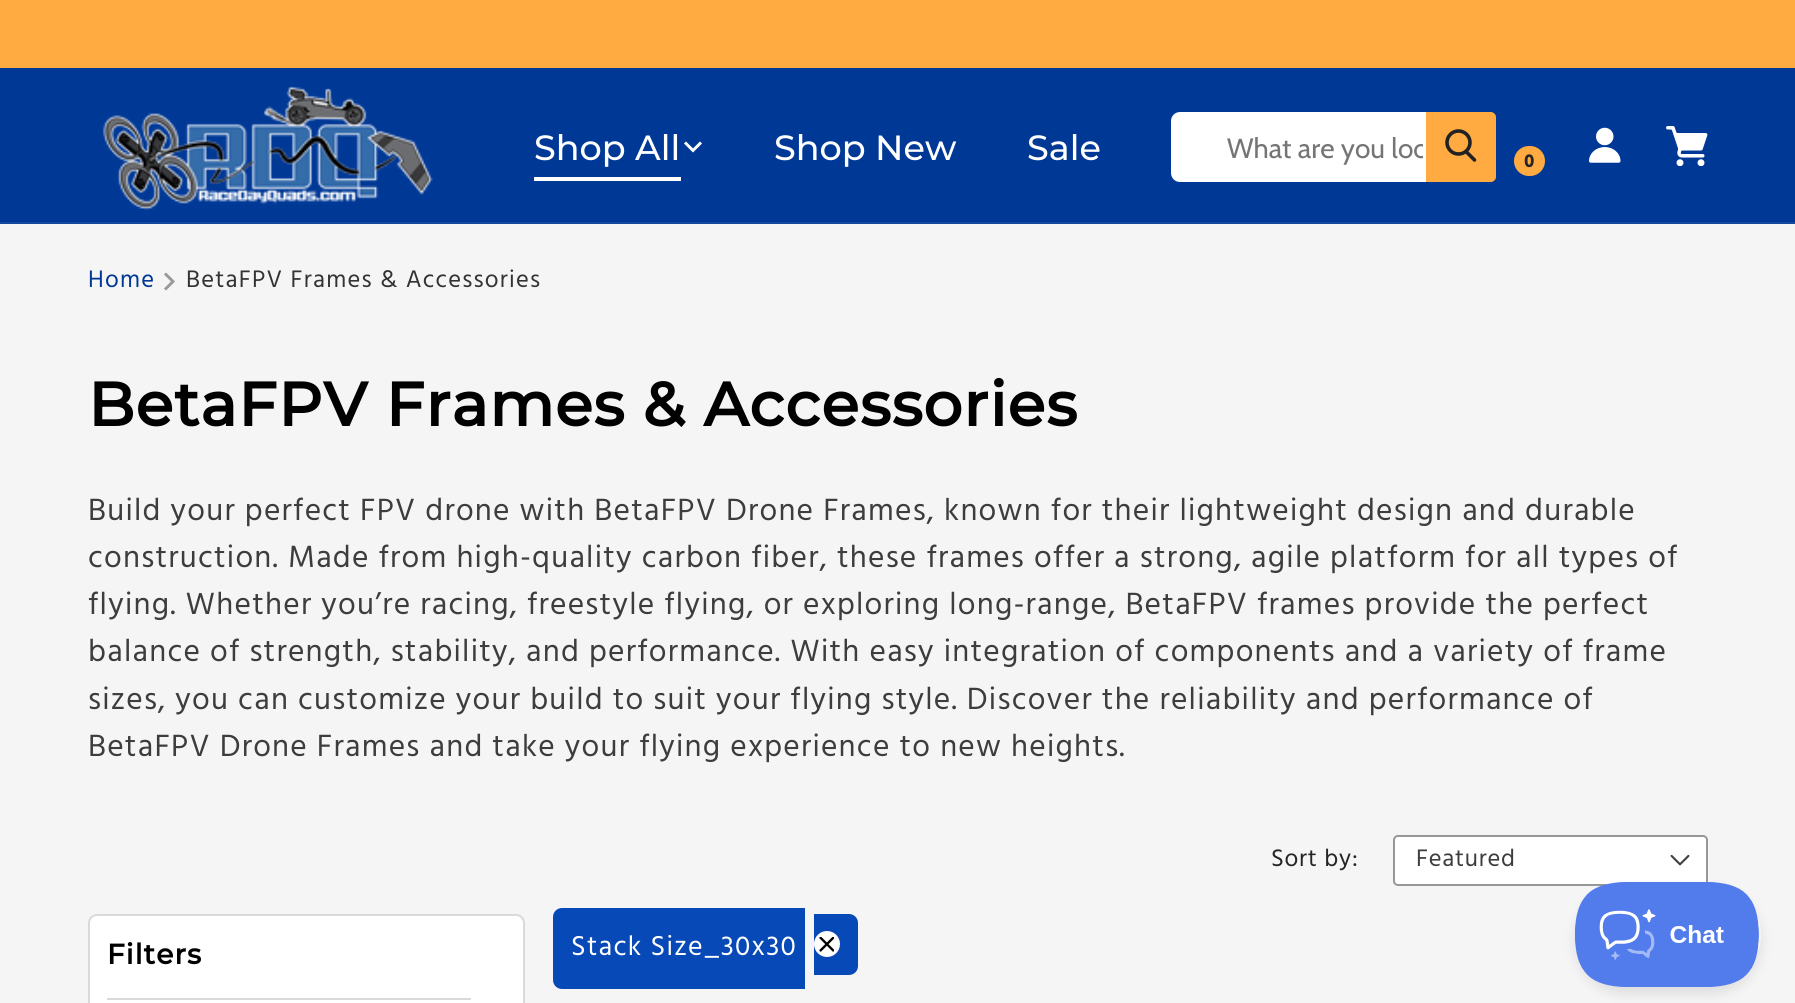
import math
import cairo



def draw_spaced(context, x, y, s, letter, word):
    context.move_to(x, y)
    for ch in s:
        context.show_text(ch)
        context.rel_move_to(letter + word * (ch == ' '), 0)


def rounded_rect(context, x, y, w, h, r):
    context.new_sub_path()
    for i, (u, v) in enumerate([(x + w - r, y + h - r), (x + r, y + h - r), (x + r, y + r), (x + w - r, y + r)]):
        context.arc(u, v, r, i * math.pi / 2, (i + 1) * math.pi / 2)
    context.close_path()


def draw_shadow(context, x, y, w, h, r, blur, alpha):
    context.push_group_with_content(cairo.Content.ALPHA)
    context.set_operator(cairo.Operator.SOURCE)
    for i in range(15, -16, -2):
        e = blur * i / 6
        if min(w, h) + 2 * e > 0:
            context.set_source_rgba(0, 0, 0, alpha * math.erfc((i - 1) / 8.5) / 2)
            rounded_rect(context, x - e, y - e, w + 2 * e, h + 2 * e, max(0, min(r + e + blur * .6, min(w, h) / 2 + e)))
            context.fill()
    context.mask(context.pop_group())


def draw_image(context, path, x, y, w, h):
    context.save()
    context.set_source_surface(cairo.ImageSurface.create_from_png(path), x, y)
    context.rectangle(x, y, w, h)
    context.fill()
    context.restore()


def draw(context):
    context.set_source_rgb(245 / 255, 245 / 255, 245 / 255)
    context.paint()
    context.set_source_rgb(1, 171 / 255, 65 / 255)
    context.rectangle(0, 0, 1795, 68)
    context.fill()
    context.set_source_rgb(0, 56 / 255, 150 / 255)
    context.rectangle(0, 68, 1795, 154)
    context.fill()
    context.set_source_rgb(20 / 255, 72 / 255, 158 / 255)
    context.rectangle(0, 222, 1795, 2)
    context.fill()
    draw_image(context, "images/1.png", 102, 86, 331, 125)
    context.set_source_rgb(1, 1, 1)
    context.rectangle(534, 177, 147, 4)
    context.fill()
    context.new_path()
    context.move_to(693, 150.5)
    context.line_to(700, 143.5)
    context.move_to(693, 150.5)
    context.line_to(686, 143.5)
    context.set_line_width(2.9)
    context.set_line_cap(cairo.LineCap.SQUARE)
    context.stroke()
    context.new_path()
    context.move_to(1180, 112)
    context.line_to(1426, 112)
    context.line_to(1426, 182)
    context.line_to(1180, 182)
    context.curve_to(1175, 182, 1171, 178, 1171, 173)
    context.line_to(1171, 121)
    context.curve_to(1171, 116, 1175, 112, 1180, 112)
    context.close_path()
    context.fill()
    context.set_source_rgb(1, 171 / 255, 65 / 255)
    context.new_path()
    context.move_to(1427, 113)
    context.line_to(1491, 113)
    context.curve_to(1493, 113, 1495, 115, 1495, 117)
    context.line_to(1495, 177)
    context.curve_to(1495, 179, 1493, 181, 1491, 181)
    context.line_to(1427, 181)
    context.close_path()
    context.fill_preserve()
    context.set_line_width(2)
    context.set_line_cap(cairo.LineCap.BUTT)
    context.stroke()
    context.new_path()
    context.move_to(1474.5, 160)
    context.line_to(1466.5, 152)
    context.set_source_rgb(34 / 255, 34 / 255, 34 / 255)
    context.set_line_width(3.6)
    context.set_line_cap(cairo.LineCap.ROUND)
    context.stroke()
    context.arc(1458.5, 142.5, 11.5, 0, 2 * math.pi)
    context.set_line_cap(cairo.LineCap.BUTT)
    context.stroke()
    context.set_source_rgb(1, 171 / 255, 65 / 255)
    rounded_rect(context, 1512, 144, 35, 34, 17)
    context.fill_preserve()
    context.set_source_rgb(0, 56 / 255, 150 / 255)
    context.set_line_width(4)
    context.stroke()
    draw_image(context, "images/2.png", 1589, 127, 32, 36)
    draw_image(context, "images/3.png", 1666, 126, 42, 40)
    context.new_path()
    context.move_to(173, 281.5)
    context.line_to(166, 274.5)
    context.move_to(173, 281.5)
    context.line_to(166, 288.5)
    context.set_source_rgb(153 / 255, 153 / 255, 153 / 255)
    context.set_line_width(2.9)
    context.set_line_cap(cairo.LineCap.SQUARE)
    context.stroke()
    context.set_source_rgb(1, 1, 1)
    rounded_rect(context, 1394, 836, 313, 49, 4)
    context.fill_preserve()
    context.set_source_rgb(151 / 255, 151 / 255, 151 / 255)
    context.set_line_width(2)
    context.set_line_cap(cairo.LineCap.BUTT)
    context.stroke()
    draw_image(context, "images/4.png", 1670, 854, 20, 12)
    context.set_source_rgb(1, 1, 1)
    rounded_rect(context, 89, 915, 435, 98, 8)
    context.fill_preserve()
    context.set_source_rgb(217 / 255, 217 / 255, 217 / 255)
    context.stroke()
    context.rectangle(107, 998, 364, 2)
    context.fill()
    context.set_source_rgb(7 / 255, 73 / 255, 183 / 255)
    context.new_path()
    context.move_to(562, 908)
    context.line_to(805, 908)
    context.line_to(805, 989)
    context.line_to(562, 989)
    context.curve_to(557, 989, 553, 985, 553, 980)
    context.line_to(553, 917)
    context.curve_to(553, 912, 557, 908, 562, 908)
    context.close_path()
    context.fill()
    context.new_path()
    context.move_to(814, 914)
    context.line_to(849, 914)
    context.curve_to(854, 914, 858, 918, 858, 923)
    context.line_to(858, 966)
    context.curve_to(858, 971, 854, 975, 849, 975)
    context.line_to(814, 975)
    context.close_path()
    context.fill()
    context.set_source_rgb(1, 1, 1)
    context.arc(827, 944, 13, 0, 2 * math.pi)
    context.fill()
    draw_image(context, "images/5.png", 819, 937, 15, 15)
    context.save()
    context.set_fill_rule(cairo.FillRule.EVEN_ODD)
    context.new_path()
    context.move_to(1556, 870)
    context.line_to(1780, 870)
    context.line_to(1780, 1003)
    context.line_to(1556, 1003)
    context.close_path()
    context.move_to(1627.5, 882)
    context.line_to(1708.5, 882)
    context.curve_to(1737.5, 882, 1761, 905.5, 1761, 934.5)
    context.curve_to(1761, 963.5, 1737.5, 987, 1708.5, 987)
    context.line_to(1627.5, 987)
    context.curve_to(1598.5, 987, 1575, 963.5, 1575, 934.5)
    context.curve_to(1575, 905.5, 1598.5, 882, 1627.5, 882)
    context.close_path()
    context.clip()
    context.set_source_rgb(0, 0, 0)
    draw_shadow(context, 1575, 889, 186, 105, 52.5, 6, 0.1)
    context.restore()
    draw_image(context, "images/6.png", 1575, 882, 184, 105)
    context.select_font_face("Montserrat Medium")
    context.set_font_size(35)
    context.move_to(534, 160)
    context.show_text("Shop All")
    context.move_to(774, 160)
    context.show_text("Shop New")
    context.move_to(1027, 160)
    context.show_text("Sale")
    context.save()
    context.rectangle(1227, 131, 196, 34)
    context.clip()
    context.select_font_face("Cabin")
    context.set_font_size(28)
    context.set_source_rgb(117 / 255, 117 / 255, 117 / 255)
    context.move_to(1227, 158)
    context.show_text("What are you loo")
    context.restore()
    context.select_font_face("Hind", cairo.FontSlant.NORMAL, cairo.FontWeight.BOLD)
    context.set_font_size(19)
    context.set_source_rgb(37 / 255, 37 / 255, 37 / 255)
    draw_spaced(context, 1524, 167, "0", 1.22, 0)
    context.select_font_face("Hind")
    context.set_font_size(24.5)
    context.set_source_rgb(0, 56 / 255, 150 / 255)
    draw_spaced(context, 88, 287, "Home", 1.22, 0)
    context.set_source_rgb(51 / 255, 51 / 255, 51 / 255)
    draw_spaced(context, 186, 287, "BetaFPV Frames & Accessories", 1.22, 0)
    context.select_font_face("Montserrat", cairo.FontSlant.NORMAL, cairo.FontWeight.BOLD)
    context.set_font_size(61.25)
    context.set_source_rgb(0, 0, 0)
    draw_spaced(context, 88, 426, "BetaFPV Frames & Accessories", 1.05, 0)
    context.select_font_face("Hind")
    context.set_font_size(31.5)
    context.set_source_rgb(61 / 255, 61 / 255, 61 / 255)
    draw_spaced(context, 88, 520, "Build your perfect FPV drone with BetaFPV Drone Frames, known for their lightweight design and durable", 1.22, 0)
    draw_spaced(context, 88, 567, "construction. Made from high-quality carbon fiber, these frames offer a strong, agile platform for all types of", 1.22, 0)
    draw_spaced(context, 88, 614, "flying. Whether you’re racing, freestyle flying, or exploring long-range, BetaFPV frames provide the perfect", 1.22, 0)
    draw_spaced(context, 88, 661, "balance of strength, stability, and performance. With easy integration of components and a variety of frame", 1.22, 0)
    draw_spaced(context, 88, 709, "sizes, you can customize your build to suit your flying style. Discover the reliability and performance of", 1.22, 0)
    draw_spaced(context, 88, 756, "BetaFPV Drone Frames and take your flying experience to new heights.", 1.22, 0)
    context.set_font_size(24.5)
    context.set_source_rgb(37 / 255, 37 / 255, 37 / 255)
    draw_spaced(context, 1271, 866, "Sort by:", 0.75, 0)
    context.set_source_rgb(61 / 255, 61 / 255, 61 / 255)
    draw_spaced(context, 1416, 866, "Featured", 0.75, 0)
    context.select_font_face("Montserrat", cairo.FontSlant.NORMAL, cairo.FontWeight.BOLD)
    context.set_font_size(28)
    context.set_source_rgb(0, 0, 0)
    draw_spaced(context, 107, 964, "Filters", 1.05, 0)
    context.select_font_face("Hind")
    context.set_source_rgb(1, 1, 1)
    draw_spaced(context, 571, 955, "Stack Size_30x30", 1.22, 0)


surface = cairo.ImageSurface(cairo.Format.RGB24, 1795, 1003)
context = cairo.Context(surface)
options = cairo.FontOptions()
options.set_hint_metrics(cairo.HintMetrics.OFF)
options.set_hint_style(cairo.HintStyle.NONE)
context.set_font_options(options)
context.set_miter_limit(4)
draw(context)
surface.write_to_png("out.png")
